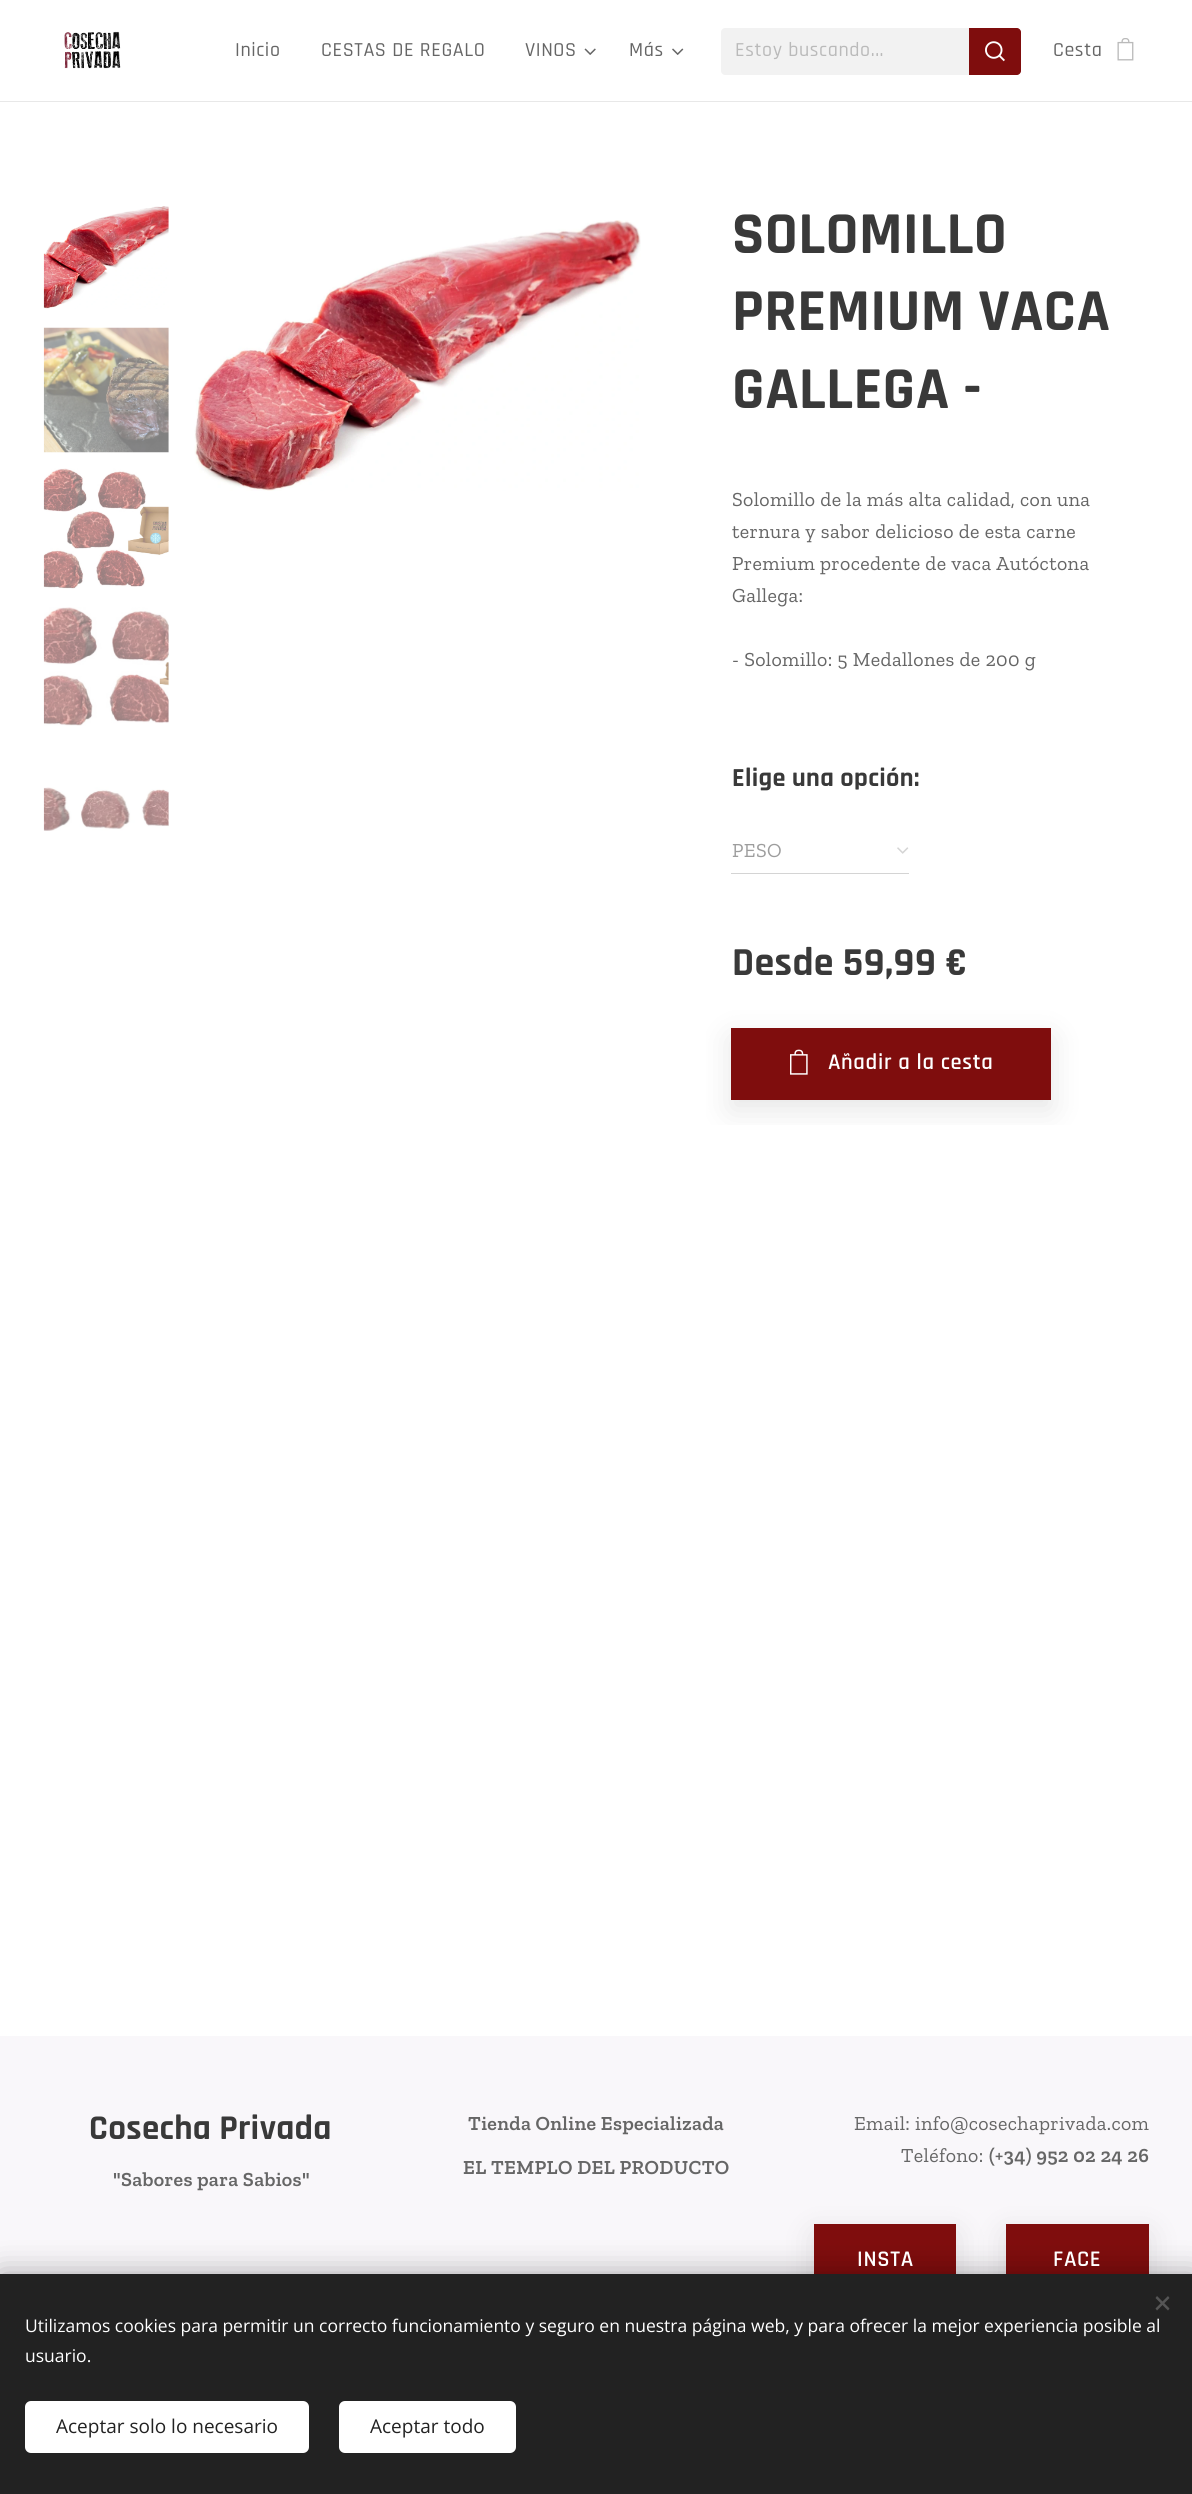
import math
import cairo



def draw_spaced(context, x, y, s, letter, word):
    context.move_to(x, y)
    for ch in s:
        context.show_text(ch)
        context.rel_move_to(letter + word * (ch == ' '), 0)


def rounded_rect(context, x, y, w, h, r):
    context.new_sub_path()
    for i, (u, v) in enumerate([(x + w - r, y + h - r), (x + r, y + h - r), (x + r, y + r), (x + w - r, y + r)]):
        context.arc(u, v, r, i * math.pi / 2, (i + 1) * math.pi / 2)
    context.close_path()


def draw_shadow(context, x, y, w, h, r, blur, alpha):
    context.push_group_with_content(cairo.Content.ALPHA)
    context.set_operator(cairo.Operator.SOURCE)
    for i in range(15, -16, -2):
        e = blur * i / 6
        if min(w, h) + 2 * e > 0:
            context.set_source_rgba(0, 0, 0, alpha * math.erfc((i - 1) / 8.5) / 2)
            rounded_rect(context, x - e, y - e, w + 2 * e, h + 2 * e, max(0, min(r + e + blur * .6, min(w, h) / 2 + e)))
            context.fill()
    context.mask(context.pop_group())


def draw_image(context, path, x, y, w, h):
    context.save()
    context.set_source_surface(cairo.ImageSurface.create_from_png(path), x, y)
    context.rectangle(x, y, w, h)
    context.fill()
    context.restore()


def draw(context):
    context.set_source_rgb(1, 1, 1)
    context.paint()
    draw_image(context, "images/1.png", 64, 31, 57, 38)
    draw_image(context, "images/2.png", 584, 48, 12, 7)
    draw_image(context, "images/3.png", 672, 48, 12, 7)
    context.set_source_rgb(242 / 255, 242 / 255, 242 / 255)
    context.new_path()
    context.move_to(725, 28)
    context.line_to(969, 28)
    context.line_to(969, 75)
    context.line_to(725, 75)
    context.curve_to(723, 75, 721, 73, 721, 71)
    context.line_to(721, 32)
    context.curve_to(721, 30, 723, 28, 725, 28)
    context.close_path()
    context.fill()
    context.set_source_rgb(127 / 255, 13 / 255, 13 / 255)
    context.new_path()
    context.move_to(969, 28)
    context.line_to(1017, 28)
    context.curve_to(1019, 28, 1021, 30, 1021, 32)
    context.line_to(1021, 71)
    context.curve_to(1021, 73, 1019, 75, 1017, 75)
    context.line_to(969, 75)
    context.close_path()
    context.fill()
    draw_image(context, "images/4.png", 985, 41, 20, 21)
    draw_image(context, "images/5.png", 1117, 38, 17, 23)
    context.set_source_rgb(232 / 255, 232 / 255, 232 / 255)
    context.rectangle(0, 101, 1192, 1)
    context.fill()
    draw_image(context, "images/6.png", 43, 206, 126, 103)
    draw_image(context, "images/7.png", 43, 327, 126, 126)
    draw_image(context, "images/8.png", 43, 468, 126, 121)
    draw_image(context, "images/9.png", 43, 607, 126, 119)
    draw_image(context, "images/10.png", 43, 787, 126, 44)
    draw_image(context, "images/11.png", 194, 220, 447, 271)
    draw_image(context, "images/12.png", 897, 847, 12, 7)
    context.set_source_rgb(212 / 255, 212 / 255, 212 / 255)
    context.rectangle(731, 873, 178, 1)
    context.fill()
    context.save()
    context.rectangle(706, 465, 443, 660)
    context.clip()
    context.set_source_rgb(0, 0, 0)
    draw_shadow(context, 731, 1038, 320, 72, 0, 15.5, 0.1)
    context.restore()
    context.set_source_rgb(127 / 255, 13 / 255, 13 / 255)
    context.rectangle(731, 1028, 320, 72)
    context.fill()
    draw_image(context, "images/13.png", 790, 1049, 18, 26)
    context.set_source_rgb(249 / 255, 247 / 255, 250 / 255)
    context.rectangle(0, 2036, 1192, 238)
    context.fill()
    context.set_source_rgb(0, 0, 0)
    draw_shadow(context, 814, 2234, 142, 110, 0, 15.5, 0.1)
    context.set_source_rgb(127 / 255, 13 / 255, 13 / 255)
    context.rectangle(814, 2224, 142, 50)
    context.fill()
    context.set_source_rgb(0, 0, 0)
    draw_shadow(context, 1006, 2234, 143, 110, 0, 15.5, 0.1)
    context.set_source_rgb(127 / 255, 13 / 255, 13 / 255)
    context.rectangle(1006, 2224, 143, 50)
    context.fill()
    context.set_source_rgb(0, 0, 0)
    draw_shadow(context, 0, 2274, 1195, 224, 0, 15.5, 0.33)
    context.set_source_rgb(34 / 255, 34 / 255, 34 / 255)
    context.rectangle(0, 2274, 1192, 220)
    context.fill()
    context.set_source_rgb(85 / 255, 85 / 255, 85 / 255)
    context.new_path()
    context.move_to(1155.5, 2308.5)
    context.line_to(1168, 2296)
    context.line_to(1169.5, 2298)
    context.line_to(1157, 2310.5)
    context.close_path()
    context.fill()
    context.new_path()
    context.move_to(1157, 2296)
    context.line_to(1169.5, 2308.5)
    context.line_to(1168, 2310.5)
    context.line_to(1155.5, 2298)
    context.close_path()
    context.fill()
    context.set_source_rgb(1, 1, 1)
    rounded_rect(context, 25, 2401, 284, 52, 6)
    context.fill()
    rounded_rect(context, 339, 2401, 177, 52, 6)
    context.fill()
    context.select_font_face("Rajdhani Medium")
    context.set_font_size(20)
    context.set_source_rgb(102 / 255, 102 / 255, 102 / 255)
    draw_spaced(context, 235, 56, "Inicio", 0.6, 0)
    draw_spaced(context, 321, 56, "CESTAS DE REGALO", 0.6, 0)
    draw_spaced(context, 525, 56, "VINOS", 0.6, 0)
    draw_spaced(context, 629, 56, "Más", 0.6, 0)
    context.set_source_rgb(186 / 255, 186 / 255, 186 / 255)
    draw_spaced(context, 735, 56, "Estoy buscando...", 0.6, 0)
    context.set_source_rgb(102 / 255, 102 / 255, 102 / 255)
    draw_spaced(context, 1053, 56, "Cesta", 0.6, 0)
    context.select_font_face("Rajdhani", cairo.FontSlant.NORMAL, cairo.FontWeight.BOLD)
    context.set_font_size(60)
    context.set_source_rgb(57 / 255, 57 / 255, 57 / 255)
    draw_spaced(context, 732, 253, "SOLOMILLO", 0.35, 0)
    draw_spaced(context, 732, 330, "PREMIUM VACA", 0.35, 0)
    draw_spaced(context, 732, 408, "GALLEGA -", 0.35, 0)
    context.select_font_face("Zilla Slab")
    context.set_font_size(20)
    context.set_source_rgb(102 / 255, 102 / 255, 102 / 255)
    draw_spaced(context, 732, 506, "Solomillo de la más alta calidad, con una", 0.35, 0)
    draw_spaced(context, 732, 538, "ternura y sabor delicioso de esta carne", 0.35, 0)
    draw_spaced(context, 732, 570, "Premium procedente de vaca Autóctona", 0.35, 0)
    draw_spaced(context, 732, 602, "Gallega:", 0.35, 0)
    draw_spaced(context, 732, 666, "- Solomillo: 5 Medallones de 200 g", 0.35, 0)
    context.select_font_face("Rajdhani", cairo.FontSlant.NORMAL, cairo.FontWeight.BOLD)
    context.set_font_size(26.25)
    context.set_source_rgb(57 / 255, 57 / 255, 57 / 255)
    draw_spaced(context, 732, 786, "Elige una opción:", 0.35, 0)
    context.select_font_face("Zilla Slab")
    context.set_font_size(20)
    context.set_source_rgb(157 / 255, 157 / 255, 157 / 255)
    draw_spaced(context, 732, 857, "PESO", 0.35, 0)
    context.select_font_face("Rajdhani", cairo.FontSlant.NORMAL, cairo.FontWeight.BOLD)
    context.set_font_size(40)
    context.set_source_rgb(57 / 255, 57 / 255, 57 / 255)
    draw_spaced(context, 732, 975, "Desde 59,99 €", 0.35, 0)
    context.select_font_face("Rajdhani SemiBold")
    context.set_font_size(22.5)
    context.set_source_rgb(1, 1, 1)
    draw_spaced(context, 828, 1069, "Añadir a la cesta", 0.7, 0)
    context.select_font_face("Rajdhani", cairo.FontSlant.NORMAL, cairo.FontWeight.BOLD)
    context.set_font_size(35)
    context.set_source_rgb(57 / 255, 57 / 255, 57 / 255)
    draw_spaced(context, 89, 2139, "Cosecha Privada", 0.3, 0)
    context.select_font_face("Zilla Slab SemiBold")
    context.set_font_size(20)
    context.set_source_rgb(102 / 255, 102 / 255, 102 / 255)
    draw_spaced(context, 113, 2186, "\"Sabores para Sabios\"", 0.35, 0)
    draw_spaced(context, 468, 2130, "Tienda Online Especializada", 0.35, 0)
    draw_spaced(context, 463, 2174, "EL TEMPLO DEL PRODUCTO", 0.35, 0)
    context.select_font_face("Zilla Slab")
    draw_spaced(context, 854, 2130, "Email: info@cosechaprivada.com", 0.35, 0)
    draw_spaced(context, 901, 2162, "Teléfono:", 0.35, 0)
    context.select_font_face("Zilla Slab SemiBold")
    draw_spaced(context, 989, 2162, "(+34) 952 02 24 26", 0.35, 0)
    context.select_font_face("Rajdhani SemiBold")
    context.set_font_size(22.5)
    context.set_source_rgb(1, 1, 1)
    draw_spaced(context, 857, 2266, "INSTA", 0.7, 0)
    draw_spaced(context, 1053, 2266, "FACE", 0.7, 0)
    context.select_font_face("Open Sans")
    context.set_font_size(17.5)
    context.move_to(25, 2332)
    context.show_text("Utilizamos cookies para permitir un correcto funcionamiento y seguro en nuestra página web, y para ofrecer la mejor experiencia posible al")
    context.move_to(25, 2362)
    context.show_text("usuario.")
    context.set_font_size(19)
    context.set_source_rgb(34 / 255, 34 / 255, 34 / 255)
    context.move_to(56, 2433)
    context.show_text("Aceptar solo lo necesario")
    context.move_to(370, 2433)
    context.show_text("Aceptar todo")


surface = cairo.ImageSurface(cairo.Format.RGB24, 1192, 2494)
context = cairo.Context(surface)
options = cairo.FontOptions()
options.set_hint_metrics(cairo.HintMetrics.OFF)
options.set_hint_style(cairo.HintStyle.NONE)
context.set_font_options(options)
context.set_miter_limit(4)
draw(context)
surface.write_to_png("out.png")
